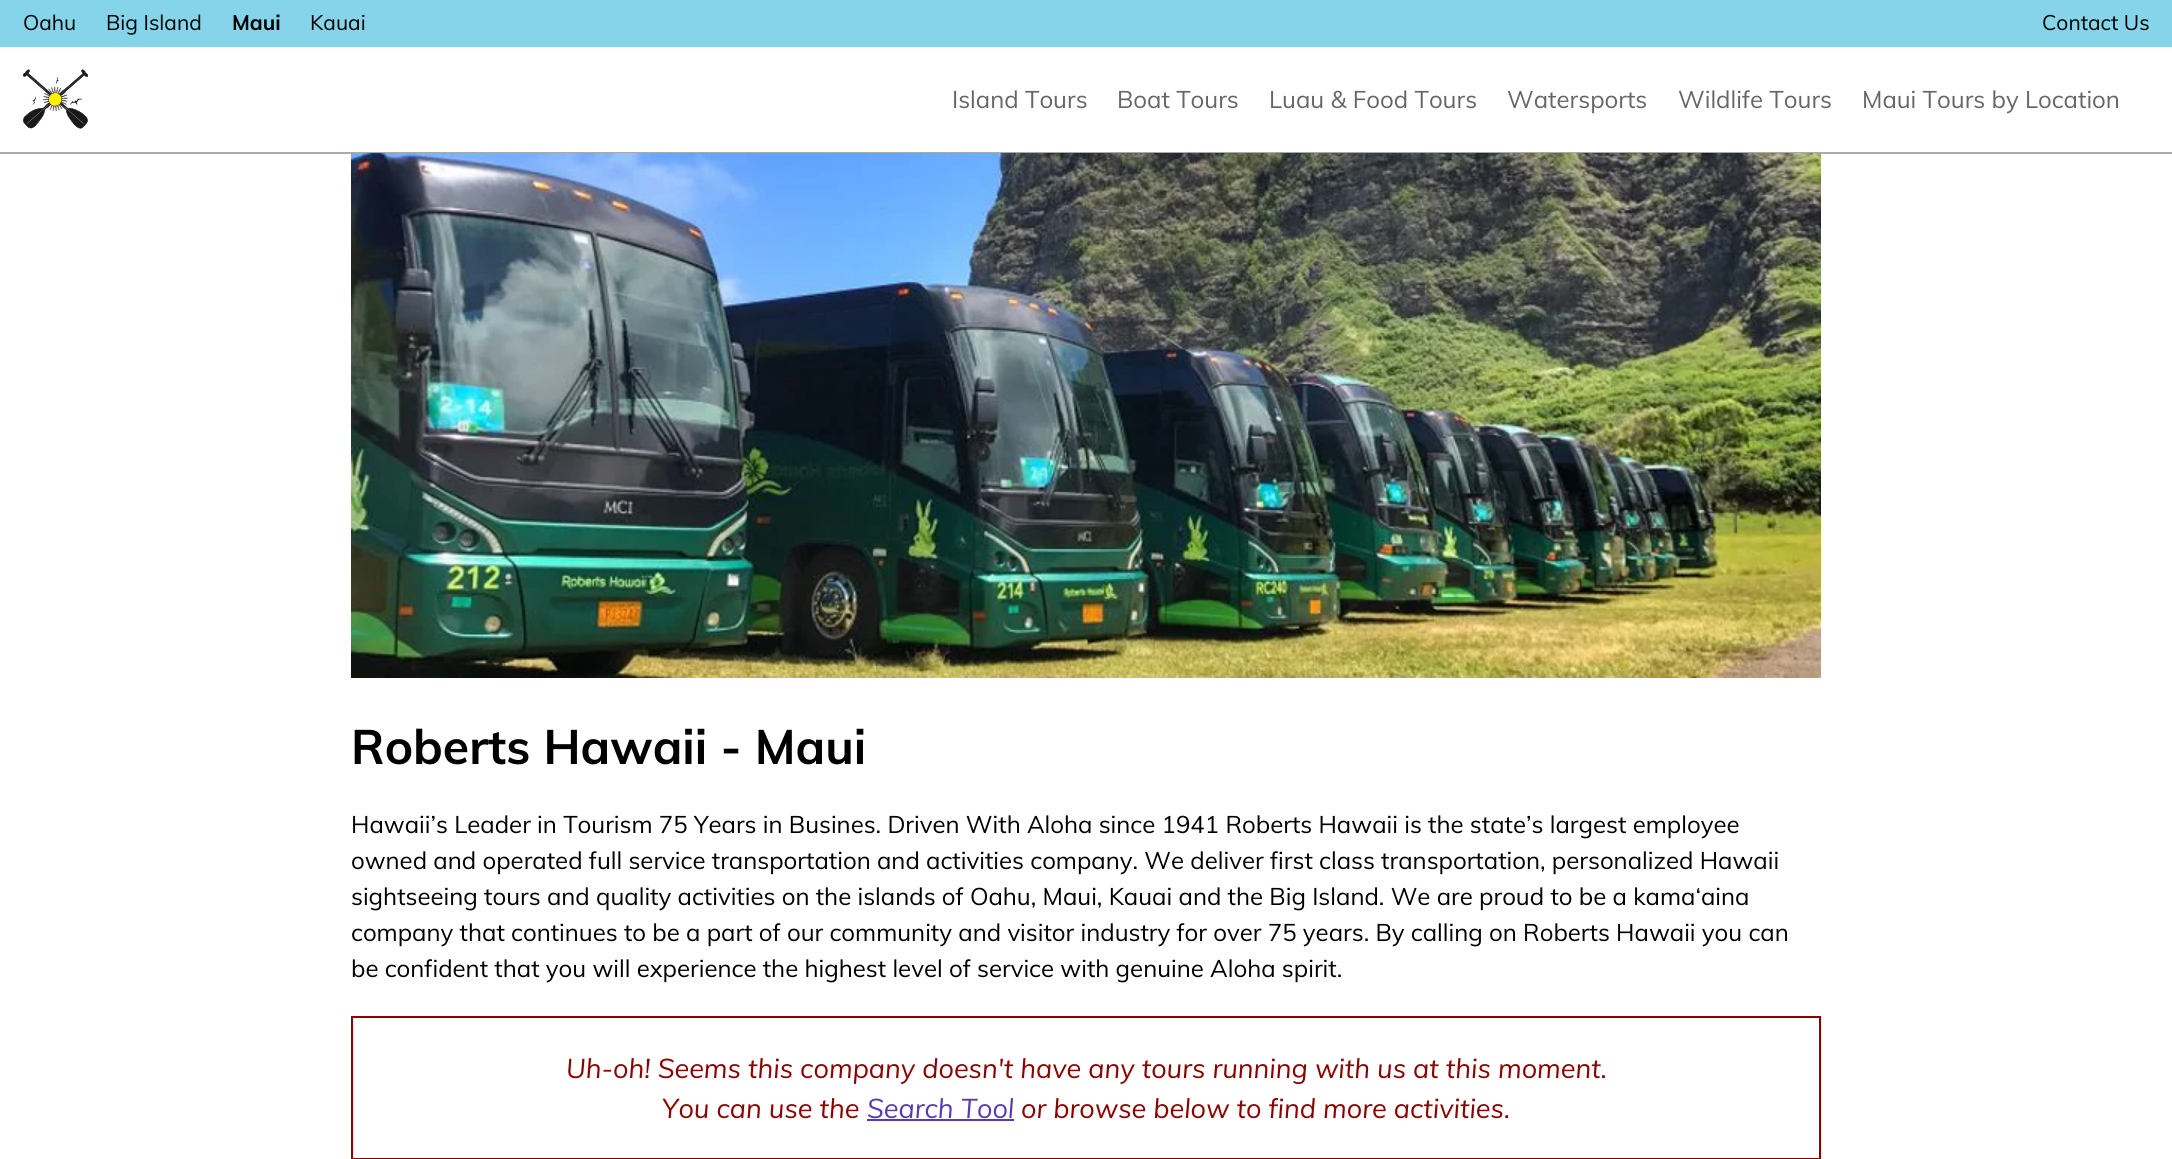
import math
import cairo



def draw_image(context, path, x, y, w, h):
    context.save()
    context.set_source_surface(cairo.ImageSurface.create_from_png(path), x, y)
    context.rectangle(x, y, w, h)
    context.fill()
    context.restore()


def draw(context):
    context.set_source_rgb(1, 1, 1)
    context.paint()
    context.set_source_rgb(133 / 255, 212 / 255, 234 / 255)
    context.rectangle(0, 0, 2172, 47)
    context.fill()
    context.set_source_rgb(170 / 255, 170 / 255, 170 / 255)
    context.rectangle(0, 152, 2172, 2)
    context.fill()
    draw_image(context, "images/1.png", 23, 69, 66, 60)
    draw_image(context, "images/2.png", 351, 153, 1470, 525)
    context.rectangle(352, 1017, 1468, 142)
    context.set_source_rgb(139 / 255, 0, 0)
    context.stroke()
    context.set_source_rgb(87 / 255, 57 / 255, 178 / 255)
    context.rectangle(867, 1119, 147, 2)
    context.fill()
    context.select_font_face("Muli")
    context.set_font_size(21)
    context.set_source_rgb(0, 0, 0)
    context.move_to(23, 30)
    context.show_text("Oahu")
    context.move_to(106, 30)
    context.show_text("Big Island")
    context.select_font_face("Muli", cairo.FontSlant.NORMAL, cairo.FontWeight.BOLD)
    context.move_to(232, 30)
    context.show_text("Maui")
    context.select_font_face("Muli")
    context.move_to(310, 30)
    context.show_text("Kauai")
    context.move_to(2042, 30)
    context.show_text("Contact Us")
    context.set_font_size(24)
    context.set_source_rgb(102 / 255, 102 / 255, 102 / 255)
    context.move_to(952, 108)
    context.show_text("Island Tours")
    context.move_to(1117, 108)
    context.show_text("Boat Tours")
    context.move_to(1269, 108)
    context.show_text("Luau & Food Tours")
    context.move_to(1507, 108)
    context.show_text("Watersports")
    context.move_to(1678, 108)
    context.show_text("Wildlife Tours")
    context.move_to(1862, 108)
    context.show_text("Maui Tours by Location")
    context.select_font_face("Muli", cairo.FontSlant.NORMAL, cairo.FontWeight.BOLD)
    context.set_font_size(48)
    context.set_source_rgb(0, 0, 0)
    context.move_to(351, 764)
    context.show_text("Roberts Hawaii - Maui")
    context.select_font_face("Muli")
    context.set_font_size(24)
    context.move_to(351, 833)
    context.show_text("Hawaii’s Leader in Tourism 75 Years in Busines. Driven With Aloha since 1941 Roberts Hawaii is the state’s largest employee")
    context.move_to(351, 869)
    context.show_text("owned and operated full service transportation and activities company. We deliver first class transportation, personalized Hawaii")
    context.move_to(351, 905)
    context.show_text("sightseeing tours and quality activities on the islands of Oahu, Maui, Kauai and the Big Island. We are proud to be a kama‘aina")
    context.move_to(351, 941)
    context.show_text("company that continues to be a part of our community and visitor industry for over 75 years. By calling on Roberts Hawaii you can")
    context.move_to(351, 977)
    context.show_text("be confident that you will experience the highest level of service with genuine Aloha spirit.")
    context.select_font_face("Muli", cairo.FontSlant.ITALIC)
    context.set_font_size(27)
    context.set_source_rgb(139 / 255, 0, 0)
    context.move_to(566, 1078)
    context.show_text("Uh-oh! Seems this company doesn't have any tours running with us at this moment.")
    context.move_to(662, 1118)
    context.show_text("You can use the")
    context.set_source_rgb(87 / 255, 57 / 255, 178 / 255)
    context.move_to(867, 1118)
    context.show_text("Search Tool")
    context.set_source_rgb(139 / 255, 0, 0)
    context.move_to(1021, 1118)
    context.show_text("or browse below to find more activities.")


surface = cairo.ImageSurface(cairo.Format.RGB24, 2172, 1159)
context = cairo.Context(surface)
options = cairo.FontOptions()
options.set_hint_metrics(cairo.HintMetrics.OFF)
options.set_hint_style(cairo.HintStyle.NONE)
context.set_font_options(options)
context.set_miter_limit(4)
draw(context)
surface.write_to_png("out.png")
